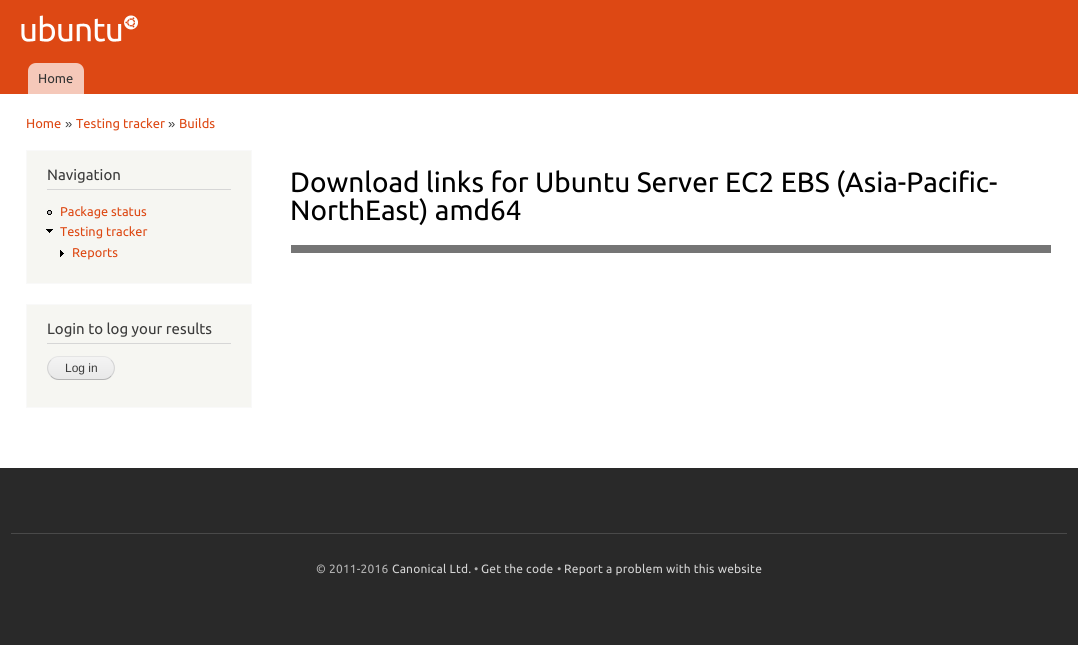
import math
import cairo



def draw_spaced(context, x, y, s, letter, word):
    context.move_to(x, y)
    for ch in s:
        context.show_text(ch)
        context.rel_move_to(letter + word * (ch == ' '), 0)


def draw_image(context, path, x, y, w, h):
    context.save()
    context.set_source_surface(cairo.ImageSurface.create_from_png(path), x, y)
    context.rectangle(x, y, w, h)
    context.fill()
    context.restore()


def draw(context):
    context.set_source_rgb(41 / 255, 41 / 255, 41 / 255)
    context.paint()
    context.set_source_rgb(1, 1, 1)
    context.rectangle(0, 94, 1078, 374)
    context.fill()
    context.set_source_rgb(221 / 255, 72 / 255, 20 / 255)
    context.rectangle(0, 0, 1078, 94)
    context.fill()
    draw_image(context, "images/1.png", 21, 15, 117, 27)
    context.set_source_rgb(245 / 255, 200 / 255, 185 / 255)
    context.new_path()
    context.move_to(36, 63)
    context.line_to(76, 63)
    context.curve_to(80.5, 63, 84, 66.5, 84, 71)
    context.line_to(84, 94)
    context.line_to(28, 94)
    context.line_to(28, 71)
    context.curve_to(28, 66.5, 31.5, 63, 36, 63)
    context.close_path()
    context.fill()
    context.set_source_rgb(246 / 255, 246 / 255, 242 / 255)
    context.rectangle(26.5, 150.5, 225, 133)
    context.fill_preserve()
    context.set_source_rgb(249 / 255, 249 / 255, 249 / 255)
    context.set_line_width(1)
    context.stroke()
    context.set_source_rgb(214 / 255, 214 / 255, 214 / 255)
    context.rectangle(47, 189, 184, 1)
    context.fill()
    draw_image(context, "images/2.png", 47, 210, 5, 5)
    draw_image(context, "images/3.png", 46, 229, 7, 4)
    draw_image(context, "images/4.png", 60, 250, 4, 7)
    context.set_source_rgb(246 / 255, 246 / 255, 242 / 255)
    context.rectangle(26.5, 304.5, 225, 103)
    context.fill_preserve()
    context.set_source_rgb(249 / 255, 249 / 255, 249 / 255)
    context.stroke()
    context.set_source_rgb(214 / 255, 214 / 255, 214 / 255)
    context.rectangle(47, 343, 184, 1)
    context.fill()
    draw_image(context, "images/5.png", 47, 357, 68, 23)
    context.new_path()
    context.move_to(51, 360)
    context.curve_to(53, 357.5, 56, 356.5, 59, 356.5)
    context.line_to(103, 356.5)
    context.curve_to(106, 356.5, 109, 357.5, 111, 360)
    context.set_source_rgb(228 / 255, 228 / 255, 228 / 255)
    context.stroke()
    context.new_path()
    context.move_to(111, 360)
    context.curve_to(115.5, 364.5, 115.5, 371.5, 111, 376)
    context.set_source_rgb(210 / 255, 210 / 255, 210 / 255)
    context.stroke()
    context.new_path()
    context.move_to(111, 376)
    context.curve_to(109, 378.5, 106, 379.5, 103, 379.5)
    context.line_to(59, 379.5)
    context.curve_to(56, 379.5, 53, 378.5, 51, 376)
    context.set_source_rgb(180 / 255, 180 / 255, 180 / 255)
    context.stroke()
    context.new_path()
    context.move_to(51, 376)
    context.curve_to(46.5, 371.5, 46.5, 364.5, 51, 360)
    context.set_source_rgb(210 / 255, 210 / 255, 210 / 255)
    context.stroke()
    context.set_source_rgb(117 / 255, 117 / 255, 117 / 255)
    context.rectangle(290, 245, 762, 8)
    context.fill()
    context.set_source_rgb(1, 1, 1)
    context.rectangle(1051, 244, 1, 10)
    context.fill()
    context.rectangle(290, 244, 1, 10)
    context.fill()
    context.set_source_rgb(73 / 255, 73 / 255, 73 / 255)
    context.rectangle(11, 533, 1056, 1)
    context.fill()
    context.select_font_face("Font")
    context.set_font_size(13)
    context.set_source_rgb(51 / 255, 51 / 255, 51 / 255)
    context.move_to(38, 83)
    context.show_text("Home")
    context.set_source_rgb(221 / 255, 72 / 255, 19 / 255)
    context.move_to(26, 128)
    context.show_text("Home")
    context.select_font_face("Liberation Sans")
    context.set_source_rgb(59 / 255, 59 / 255, 59 / 255)
    context.move_to(65, 128)
    context.show_text("»")
    context.select_font_face("Font")
    context.set_source_rgb(221 / 255, 72 / 255, 19 / 255)
    context.move_to(76, 128)
    context.show_text("Testing tracker")
    context.select_font_face("Liberation Sans")
    context.set_source_rgb(59 / 255, 59 / 255, 59 / 255)
    context.move_to(168, 128)
    context.show_text("»")
    context.select_font_face("Font")
    context.set_source_rgb(221 / 255, 72 / 255, 19 / 255)
    context.move_to(179, 128)
    context.show_text("Builds")
    context.set_font_size(15)
    context.set_source_rgb(59 / 255, 59 / 255, 59 / 255)
    context.move_to(47, 180)
    context.show_text("Navigation")
    context.set_font_size(12.75)
    context.set_source_rgb(221 / 255, 72 / 255, 19 / 255)
    context.move_to(60, 216)
    context.show_text("Package status")
    context.move_to(60, 236)
    context.show_text("Testing tracker")
    context.move_to(72, 257)
    context.show_text("Reports")
    context.set_font_size(15)
    context.set_source_rgb(59 / 255, 59 / 255, 59 / 255)
    context.move_to(47, 334)
    context.show_text("Login to log your results")
    context.select_font_face("Liberation Sans")
    context.set_font_size(12)
    context.move_to(65, 372)
    context.show_text("Log in")
    context.select_font_face("Font")
    context.set_font_size(28)
    context.set_source_rgb(0, 0, 0)
    context.move_to(290, 192)
    context.show_text("Download links for Ubuntu Server EC2 EBS (Asia-Pacific-")
    context.move_to(290, 220)
    context.show_text("NorthEast) amd64")
    context.set_font_size(12)
    context.set_source_rgb(180 / 255, 180 / 255, 180 / 255)
    draw_spaced(context, 316, 573, "© 2011-2016", 0.2, 0)
    context.set_source_rgb(212 / 255, 212 / 255, 212 / 255)
    draw_spaced(context, 392, 573, "Canonical Ltd.", 0.2, 0)
    context.set_source_rgb(180 / 255, 180 / 255, 180 / 255)
    draw_spaced(context, 474, 573, "•", 0.2, 0)
    context.set_source_rgb(212 / 255, 212 / 255, 212 / 255)
    draw_spaced(context, 481, 573, "Get the code", 0.2, 0)
    context.set_source_rgb(180 / 255, 180 / 255, 180 / 255)
    draw_spaced(context, 557, 573, "•", 0.2, 0)
    context.set_source_rgb(212 / 255, 212 / 255, 212 / 255)
    draw_spaced(context, 564, 573, "Report a problem with this website", 0.2, 0)


surface = cairo.ImageSurface(cairo.Format.RGB24, 1078, 645)
context = cairo.Context(surface)
options = cairo.FontOptions()
options.set_hint_metrics(cairo.HintMetrics.OFF)
options.set_hint_style(cairo.HintStyle.NONE)
context.set_font_options(options)
context.set_miter_limit(4)
draw(context)
surface.write_to_png("out.png")
